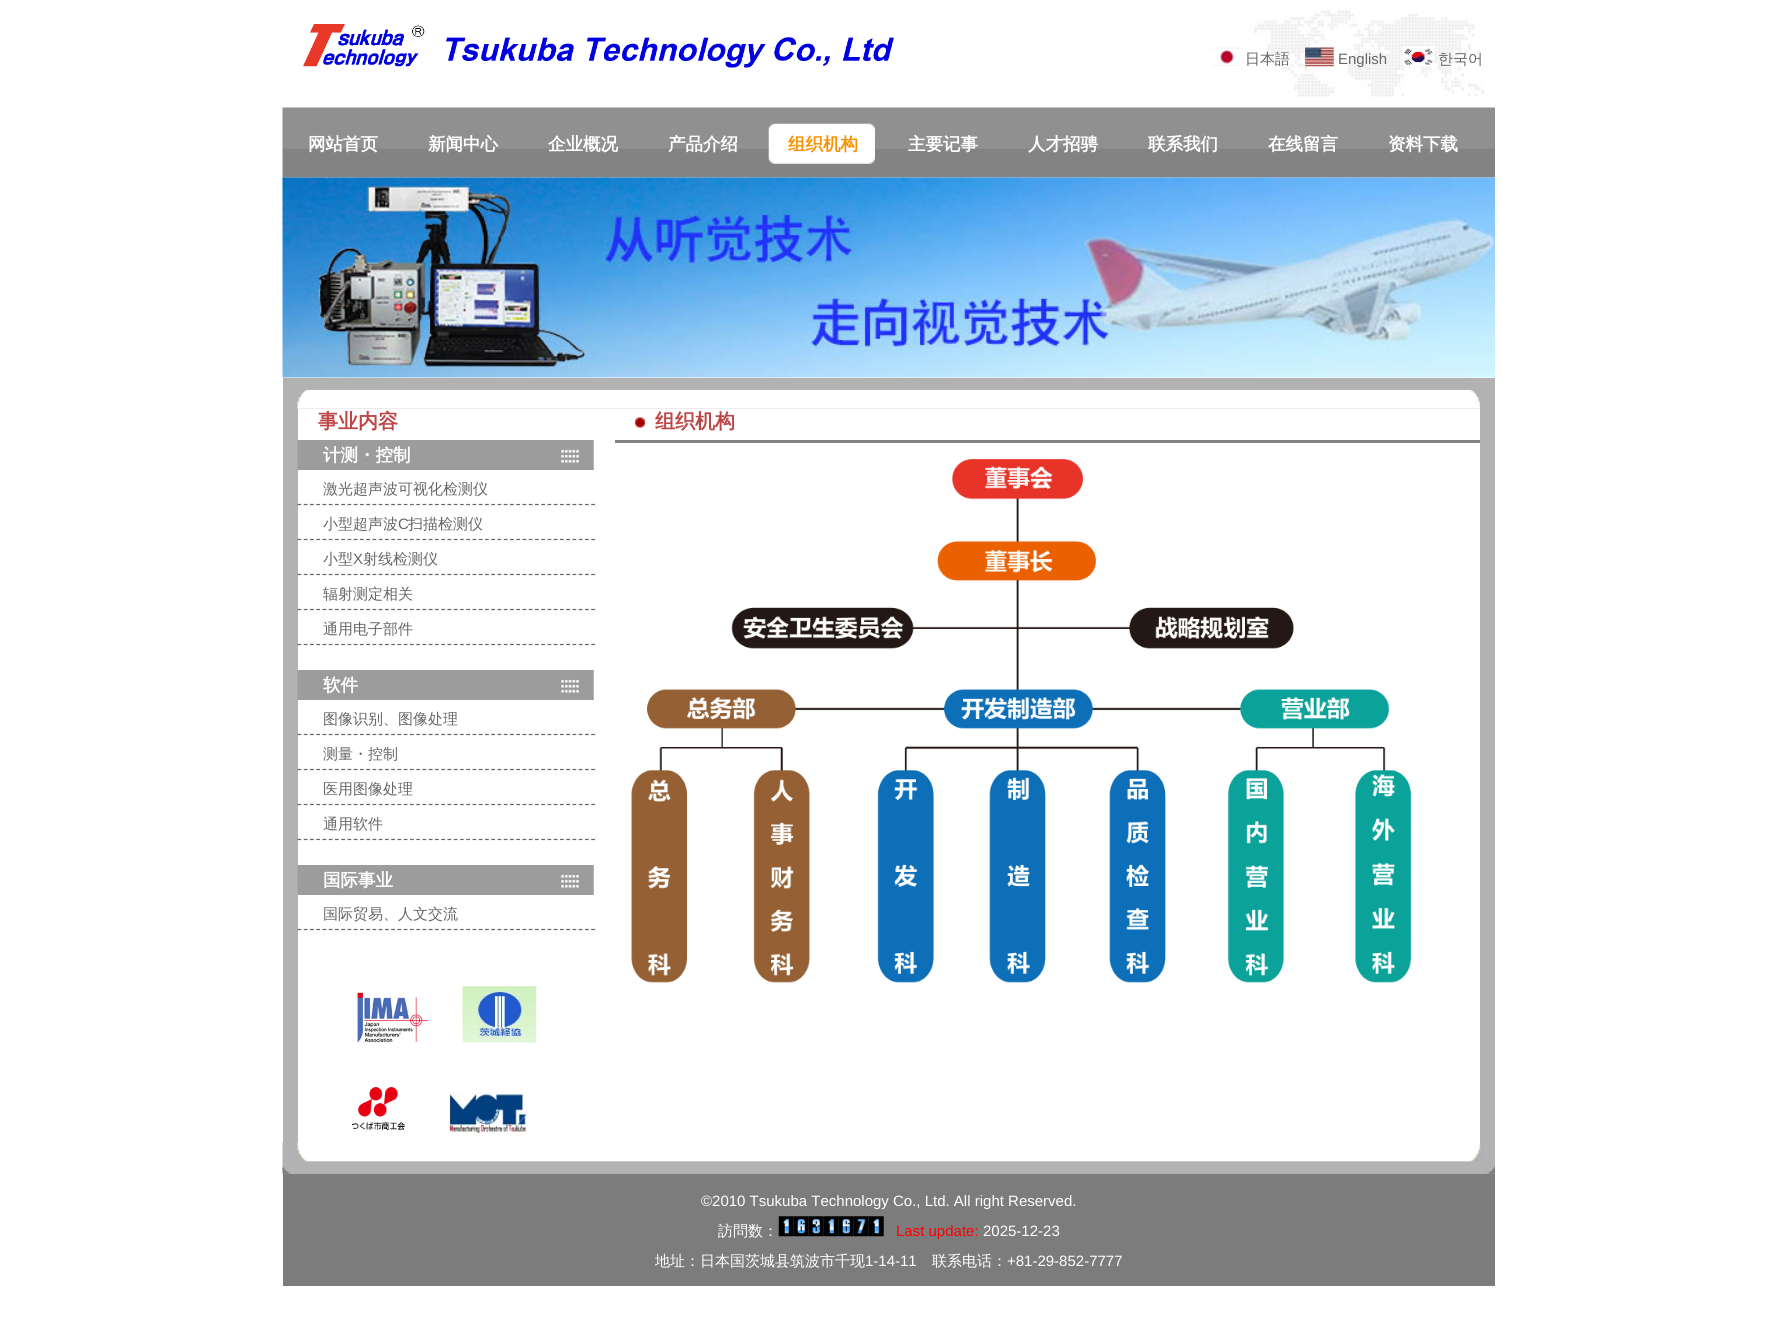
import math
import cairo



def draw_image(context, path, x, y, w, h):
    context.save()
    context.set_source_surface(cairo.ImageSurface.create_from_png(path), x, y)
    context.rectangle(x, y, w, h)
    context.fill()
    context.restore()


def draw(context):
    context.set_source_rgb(1, 1, 1)
    context.paint()
    draw_image(context, "images/1.png", 1247, 10, 238, 87)
    draw_image(context, "images/2.png", 303, 24, 591, 44)
    draw_image(context, "images/3.png", 1212, 47, 29, 19)
    draw_image(context, "images/4.png", 1305, 47, 29, 20)
    draw_image(context, "images/5.png", 1402, 46, 32, 20)
    draw_image(context, "images/6.png", 282, 107, 1213, 71)
    draw_image(context, "images/7.png", 768, 123, 107, 41)
    draw_image(context, "images/8.png", 282, 177, 1213, 201)
    context.set_source_rgb(178 / 255, 178 / 255, 178 / 255)
    context.rectangle(283, 378, 1212, 796)
    context.fill()
    draw_image(context, "images/9.png", 297, 390, 1183, 19)
    context.set_source_rgb(1, 1, 1)
    context.rectangle(298, 409, 1182, 734)
    context.fill()
    draw_image(context, "images/10.png", 297, 440, 297, 30)
    context.new_path()
    context.move_to(297.5, 504.5)
    context.line_to(595, 504.5)
    context.set_source_rgb(102 / 255, 102 / 255, 102 / 255)
    context.set_line_width(1.2)
    context.set_dash([3.75, 2.5])
    context.stroke()
    context.new_path()
    context.move_to(297.5, 539.5)
    context.line_to(595, 539.5)
    context.stroke()
    context.new_path()
    context.move_to(297.5, 574.5)
    context.line_to(595, 574.5)
    context.stroke()
    context.new_path()
    context.move_to(297.5, 609.5)
    context.line_to(595, 609.5)
    context.stroke()
    context.new_path()
    context.move_to(297.5, 644.5)
    context.line_to(595, 644.5)
    context.stroke()
    draw_image(context, "images/10.png", 297, 670, 297, 30)
    context.new_path()
    context.move_to(297.5, 734.5)
    context.line_to(595, 734.5)
    context.stroke()
    context.new_path()
    context.move_to(297.5, 769.5)
    context.line_to(595, 769.5)
    context.stroke()
    context.new_path()
    context.move_to(297.5, 804.5)
    context.line_to(595, 804.5)
    context.stroke()
    context.new_path()
    context.move_to(297.5, 839.5)
    context.line_to(595, 839.5)
    context.stroke()
    draw_image(context, "images/10.png", 297, 865, 297, 30)
    context.new_path()
    context.move_to(297.5, 929.5)
    context.line_to(595, 929.5)
    context.stroke()
    draw_image(context, "images/11.png", 357, 992, 72, 51)
    draw_image(context, "images/12.png", 462, 986, 75, 57)
    draw_image(context, "images/13.png", 351, 1087, 54, 44)
    draw_image(context, "images/14.png", 447, 1092, 81, 44)
    draw_image(context, "images/15.png", 634, 417, 11, 11)
    context.set_source_rgb(132 / 255, 131 / 255, 131 / 255)
    context.rectangle(615, 440, 865, 3)
    context.fill()
    draw_image(context, "images/16.png", 631, 459, 780, 524)
    draw_image(context, "images/17.png", 282, 1142, 1213, 32)
    context.set_source_rgb(124 / 255, 124 / 255, 124 / 255)
    context.rectangle(283, 1174, 1212, 112)
    context.fill()
    draw_image(context, "images/18.png", 778, 1216, 16, 21)
    draw_image(context, "images/19.png", 793, 1216, 16, 21)
    draw_image(context, "images/20.png", 808, 1216, 16, 21)
    draw_image(context, "images/21.png", 823, 1216, 16, 21)
    draw_image(context, "images/22.png", 838, 1216, 16, 21)
    draw_image(context, "images/23.png", 853, 1216, 16, 21)
    draw_image(context, "images/24.png", 868, 1216, 16, 21)
    context.select_font_face("WenQuanYi Zen Hei Medium")
    context.set_font_size(15)
    context.set_source_rgb(102 / 255, 102 / 255, 102 / 255)
    context.move_to(1245, 64)
    context.show_text("日本語")
    context.select_font_face("Liberation Sans")
    context.move_to(1338, 64)
    context.show_text("English")
    context.select_font_face("WenQuanYi Zen Hei Medium")
    context.move_to(1438, 64)
    context.show_text("한국어")
    context.select_font_face("WenQuanYi Zen Hei", cairo.FontSlant.NORMAL, cairo.FontWeight.BOLD)
    context.set_font_size(17.5)
    context.set_source_rgb(1, 1, 1)
    context.move_to(308, 150)
    context.show_text("网站首页")
    context.move_to(428, 150)
    context.show_text("新闻中心")
    context.move_to(548, 150)
    context.show_text("企业概况")
    context.move_to(668, 150)
    context.show_text("产品介绍")
    context.set_source_rgb(248 / 255, 145 / 255, 2 / 255)
    context.move_to(788, 150)
    context.show_text("组织机构")
    context.set_source_rgb(1, 1, 1)
    context.move_to(908, 150)
    context.show_text("主要记事")
    context.move_to(1028, 150)
    context.show_text("人才招骋")
    context.move_to(1148, 150)
    context.show_text("联系我们")
    context.move_to(1268, 150)
    context.show_text("在线留言")
    context.move_to(1388, 150)
    context.show_text("资料下载")
    context.set_font_size(20)
    context.set_source_rgb(190 / 255, 69 / 255, 70 / 255)
    context.move_to(318, 428)
    context.show_text("事业内容")
    context.set_font_size(17.5)
    context.set_source_rgb(1, 1, 1)
    context.move_to(323, 461)
    context.show_text("计测・控制")
    context.select_font_face("WenQuanYi Zen Hei Medium")
    context.set_font_size(15)
    context.set_source_rgb(102 / 255, 102 / 255, 102 / 255)
    context.move_to(323, 494)
    context.show_text("激光超声波可视化检测仪")
    context.move_to(323, 529)
    context.show_text("小型超声波")
    context.select_font_face("Liberation Sans")
    context.move_to(398, 529)
    context.show_text("C")
    context.select_font_face("WenQuanYi Zen Hei Medium")
    context.move_to(408, 529)
    context.show_text("扫描检测仪")
    context.move_to(323, 564)
    context.show_text("小型")
    context.select_font_face("Liberation Sans")
    context.move_to(353, 564)
    context.show_text("X")
    context.select_font_face("WenQuanYi Zen Hei Medium")
    context.move_to(363, 564)
    context.show_text("射线检测仪")
    context.move_to(323, 599)
    context.show_text("辐射测定相关")
    context.move_to(323, 634)
    context.show_text("通用电子部件")
    context.select_font_face("WenQuanYi Zen Hei", cairo.FontSlant.NORMAL, cairo.FontWeight.BOLD)
    context.set_font_size(17.5)
    context.set_source_rgb(1, 1, 1)
    context.move_to(323, 691)
    context.show_text("软件")
    context.select_font_face("WenQuanYi Zen Hei Medium")
    context.set_font_size(15)
    context.set_source_rgb(102 / 255, 102 / 255, 102 / 255)
    context.move_to(323, 724)
    context.show_text("图像识别、图像处理")
    context.move_to(323, 759)
    context.show_text("测量・控制")
    context.move_to(323, 794)
    context.show_text("医用图像处理")
    context.move_to(323, 829)
    context.show_text("通用软件")
    context.select_font_face("WenQuanYi Zen Hei", cairo.FontSlant.NORMAL, cairo.FontWeight.BOLD)
    context.set_font_size(17.5)
    context.set_source_rgb(1, 1, 1)
    context.move_to(323, 886)
    context.show_text("国际事业")
    context.select_font_face("WenQuanYi Zen Hei Medium")
    context.set_font_size(15)
    context.set_source_rgb(102 / 255, 102 / 255, 102 / 255)
    context.move_to(323, 919)
    context.show_text("国际贸易、人文交流")
    context.select_font_face("WenQuanYi Zen Hei", cairo.FontSlant.NORMAL, cairo.FontWeight.BOLD)
    context.set_font_size(20)
    context.set_source_rgb(190 / 255, 69 / 255, 70 / 255)
    context.move_to(655, 428)
    context.show_text("组织机构")
    context.select_font_face("Liberation Sans")
    context.set_font_size(15)
    context.set_source_rgb(1, 1, 1)
    context.move_to(701, 1206)
    context.show_text("©2010 Tsukuba Technology Co., Ltd. All right Reserved.")
    context.select_font_face("WenQuanYi Zen Hei Medium")
    context.move_to(718, 1236)
    context.show_text("訪問数：")
    context.select_font_face("Liberation Sans")
    context.set_source_rgb(1, 0, 0)
    context.move_to(896, 1236)
    context.show_text("Last update:")
    context.set_source_rgb(1, 1, 1)
    context.move_to(983, 1236)
    context.show_text("2025-12-23")
    context.select_font_face("WenQuanYi Zen Hei Medium")
    context.move_to(655, 1266)
    context.show_text("地址：日本国茨城县筑波市千现")
    context.select_font_face("Liberation Sans")
    context.move_to(865, 1266)
    context.show_text("1-14-11")
    context.select_font_face("WenQuanYi Zen Hei Medium")
    context.move_to(932, 1266)
    context.show_text("联系电话：")
    context.select_font_face("Liberation Sans")
    context.move_to(1007, 1266)
    context.show_text("+81-29-852-7777")


surface = cairo.ImageSurface(cairo.Format.RGB24, 1777, 1325)
context = cairo.Context(surface)
options = cairo.FontOptions()
options.set_hint_metrics(cairo.HintMetrics.OFF)
options.set_hint_style(cairo.HintStyle.NONE)
context.set_font_options(options)
context.set_miter_limit(4)
draw(context)
surface.write_to_png("out.png")
